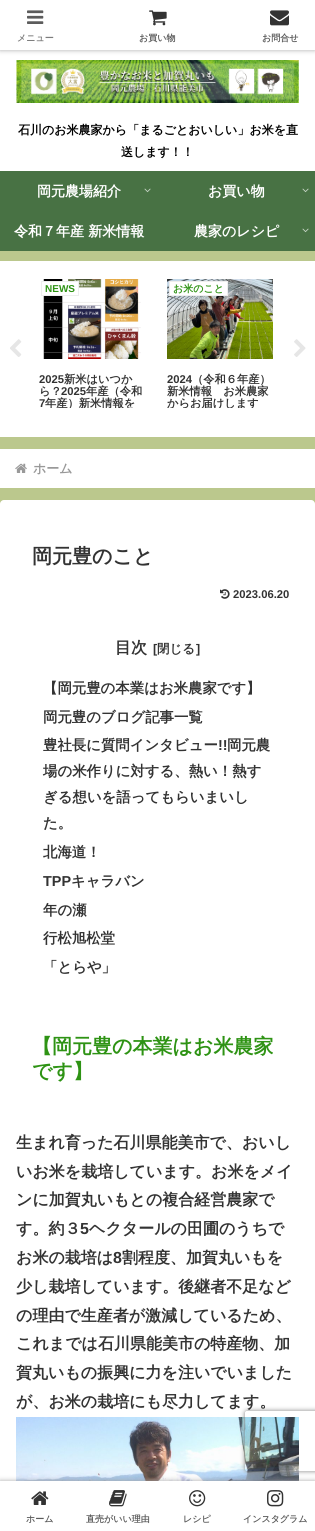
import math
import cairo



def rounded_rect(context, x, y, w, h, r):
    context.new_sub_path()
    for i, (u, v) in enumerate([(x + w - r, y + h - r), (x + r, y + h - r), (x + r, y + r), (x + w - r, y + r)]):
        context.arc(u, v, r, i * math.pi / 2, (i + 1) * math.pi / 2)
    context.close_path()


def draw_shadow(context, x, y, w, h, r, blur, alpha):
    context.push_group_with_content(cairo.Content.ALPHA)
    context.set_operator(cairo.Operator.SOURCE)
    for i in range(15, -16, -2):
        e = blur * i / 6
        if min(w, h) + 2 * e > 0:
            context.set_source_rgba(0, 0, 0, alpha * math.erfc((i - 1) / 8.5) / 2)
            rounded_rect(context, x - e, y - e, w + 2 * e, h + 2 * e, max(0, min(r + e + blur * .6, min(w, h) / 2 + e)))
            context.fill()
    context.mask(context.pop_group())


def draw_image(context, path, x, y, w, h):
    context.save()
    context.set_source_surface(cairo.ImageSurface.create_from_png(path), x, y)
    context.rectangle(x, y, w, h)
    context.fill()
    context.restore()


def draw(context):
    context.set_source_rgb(187 / 255, 200 / 255, 141 / 255)
    context.paint()
    context.set_source_rgb(1, 1, 1)
    context.rectangle(0, 50, 315, 121)
    context.fill()
    context.set_source_rgb(169 / 255, 169 / 255, 169 / 255)
    draw_shadow(context, 0, 0, 315, 50, 0, 2.5, 1)
    context.set_source_rgb(1, 1, 1)
    context.rectangle(0, 0, 315, 50)
    context.fill()
    draw_image(context, "images/1.png", 27, 10, 17, 14)
    draw_image(context, "images/2.png", 149, 10, 18, 16)
    draw_image(context, "images/3.png", 270, 10, 19, 16)
    draw_image(context, "images/4.png", 16, 60, 283, 43)
    context.set_source_rgb(72 / 255, 114 / 255, 68 / 255)
    context.rectangle(0, 171, 315, 80)
    context.fill()
    draw_image(context, "images/5.png", 144, 188, 7, 5)
    draw_image(context, "images/5.png", 302, 188, 7, 5)
    draw_image(context, "images/5.png", 302, 228, 7, 5)
    context.set_source_rgb(1, 1, 1)
    context.rectangle(0, 261, 315, 176)
    context.fill()
    draw_image(context, "images/6.png", 10, 339, 12, 18)
    draw_image(context, "images/7.png", 43, 279, 98, 80)
    context.rectangle(43, 282, 35, 13)
    context.fill()
    context.rectangle(41.5, 281.5, 37, 14)
    context.set_source_rgb(238 / 255, 238 / 255, 238 / 255)
    context.set_line_width(1)
    context.stroke()
    draw_image(context, "images/8.png", 167, 279, 106, 80)
    context.set_source_rgb(1, 1, 1)
    context.rectangle(169.5, 281.5, 58, 14)
    context.fill_preserve()
    context.set_source_rgb(238 / 255, 238 / 255, 238 / 255)
    context.stroke()
    draw_image(context, "images/9.png", 294, 339, 12, 18)
    context.set_source_rgb(1, 1, 1)
    context.rectangle(0, 449, 315, 39)
    context.fill()
    draw_image(context, "images/10.png", 15, 463, 12, 10)
    rounded_rect(context, 0, 500, 315, 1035, 4)
    context.fill()
    draw_image(context, "images/11.png", 220, 589, 10, 10)
    draw_image(context, "images/12.png", 16, 1417, 283, 64)
    context.set_source_rgb(169 / 255, 169 / 255, 169 / 255)
    draw_shadow(context, 0, 1481, 315, 50, 0, 2.5, 1)
    context.set_source_rgb(1, 1, 1)
    context.rectangle(0, 1481, 315, 50)
    context.fill()
    draw_image(context, "images/13.png", 31, 1491, 18, 14)
    draw_image(context, "images/14.png", 109, 1490, 18, 17)
    draw_image(context, "images/15.png", 189, 1490, 17, 17)
    draw_image(context, "images/16.png", 267, 1490, 17, 17)
    context.save()
    context.set_fill_rule(cairo.FillRule.EVEN_ODD)
    context.new_path()
    context.move_to(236, 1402)
    context.line_to(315, 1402)
    context.line_to(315, 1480)
    context.line_to(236, 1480)
    context.close_path()
    context.move_to(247, 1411)
    context.line_to(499, 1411)
    context.curve_to(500, 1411, 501, 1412, 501, 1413)
    context.line_to(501, 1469)
    context.curve_to(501, 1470, 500, 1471, 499, 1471)
    context.line_to(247, 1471)
    context.curve_to(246, 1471, 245, 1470, 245, 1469)
    context.line_to(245, 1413)
    context.curve_to(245, 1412, 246, 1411, 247, 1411)
    context.close_path()
    context.clip()
    context.set_source_rgb(128 / 255, 128 / 255, 128 / 255)
    draw_shadow(context, 245, 1411, 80, 60, 2, 2.5, 1)
    context.restore()
    context.select_font_face("WenQuanYi Zen Hei", cairo.FontSlant.NORMAL, cairo.FontWeight.BOLD)
    context.set_font_size(9)
    context.set_source_rgb(124 / 255, 124 / 255, 124 / 255)
    context.move_to(17, 41)
    context.show_text("メニュー")
    context.set_source_rgb(92 / 255, 92 / 255, 92 / 255)
    context.move_to(139, 41)
    context.show_text("お買い物")
    context.move_to(262, 41)
    context.show_text("お問合せ")
    context.set_font_size(12)
    context.set_source_rgb(0, 0, 0)
    context.move_to(18, 134)
    context.show_text("石川のお米農家から「まるごとおいしい」お米を直")
    context.move_to(121, 156)
    context.show_text("送します！！")
    context.set_font_size(14)
    context.set_source_rgb(1, 1, 1)
    context.move_to(37, 196)
    context.show_text("岡元農場紹介")
    context.move_to(208, 196)
    context.show_text("お買い物")
    context.move_to(14, 236)
    context.show_text("令和７年産 新米情報")
    context.move_to(194, 236)
    context.show_text("農家のレシピ")
    context.select_font_face("Liberation Sans", cairo.FontSlant.NORMAL, cairo.FontWeight.BOLD)
    context.set_font_size(10)
    context.set_source_rgb(46 / 255, 147 / 255, 20 / 255)
    context.move_to(45, 292)
    context.show_text("NEWS")
    context.set_font_size(11.25)
    context.set_source_rgb(51 / 255, 51 / 255, 51 / 255)
    context.move_to(39, 383)
    context.show_text("2025")
    context.select_font_face("WenQuanYi Zen Hei", cairo.FontSlant.NORMAL, cairo.FontWeight.BOLD)
    context.move_to(64, 383)
    context.show_text("新米はいつか")
    context.move_to(39, 395)
    context.show_text("ら？")
    context.select_font_face("Liberation Sans", cairo.FontSlant.NORMAL, cairo.FontWeight.BOLD)
    context.move_to(61, 395)
    context.show_text("2025")
    context.select_font_face("WenQuanYi Zen Hei", cairo.FontSlant.NORMAL, cairo.FontWeight.BOLD)
    context.move_to(86, 395)
    context.show_text("年産（令和")
    context.select_font_face("Liberation Sans", cairo.FontSlant.NORMAL, cairo.FontWeight.BOLD)
    context.move_to(39, 407)
    context.show_text("7")
    context.save()
    context.rectangle(39, 373, 106, 35)
    context.clip()
    context.select_font_face("WenQuanYi Zen Hei", cairo.FontSlant.NORMAL, cairo.FontWeight.BOLD)
    context.move_to(45, 407)
    context.show_text("年産）新米情報を")
    context.restore()
    context.select_font_face("WenQuanYi Zen Hei", cairo.FontSlant.NORMAL, cairo.FontWeight.BOLD)
    context.set_font_size(10)
    context.set_source_rgb(46 / 255, 147 / 255, 20 / 255)
    context.move_to(173, 292)
    context.show_text("お米のこと")
    context.select_font_face("Liberation Sans", cairo.FontSlant.NORMAL, cairo.FontWeight.BOLD)
    context.set_font_size(11.25)
    context.set_source_rgb(51 / 255, 51 / 255, 51 / 255)
    context.move_to(167, 383)
    context.show_text("2024")
    context.select_font_face("WenQuanYi Zen Hei", cairo.FontSlant.NORMAL, cairo.FontWeight.BOLD)
    context.move_to(192, 383)
    context.show_text("（令和６年産）")
    context.move_to(167, 395)
    context.show_text("新米情報　お米農家")
    context.save()
    context.rectangle(167, 373, 106, 35)
    context.clip()
    context.move_to(167, 407)
    context.show_text("からお届けします")
    context.restore()
    context.set_font_size(13)
    context.set_source_rgb(153 / 255, 153 / 255, 153 / 255)
    context.move_to(33, 473)
    context.show_text("ホーム")
    context.set_font_size(20)
    context.set_source_rgb(51 / 255, 51 / 255, 51 / 255)
    context.move_to(32, 563)
    context.show_text("岡元豊のこと")
    context.select_font_face("Liberation Sans", cairo.FontSlant.NORMAL, cairo.FontWeight.BOLD)
    context.set_font_size(11.25)
    context.move_to(233, 598)
    context.show_text("2023.06.20")
    context.select_font_face("WenQuanYi Zen Hei", cairo.FontSlant.NORMAL, cairo.FontWeight.BOLD)
    context.set_font_size(16)
    context.move_to(115, 653)
    context.show_text("目次")
    context.select_font_face("Liberation Sans", cairo.FontSlant.NORMAL, cairo.FontWeight.BOLD)
    context.set_font_size(12.5)
    context.move_to(153, 653)
    context.show_text("[")
    context.select_font_face("WenQuanYi Zen Hei", cairo.FontSlant.NORMAL, cairo.FontWeight.BOLD)
    context.move_to(157, 653)
    context.show_text("閉じる")
    context.select_font_face("Liberation Sans", cairo.FontSlant.NORMAL, cairo.FontWeight.BOLD)
    context.move_to(196, 653)
    context.show_text("]")
    context.select_font_face("WenQuanYi Zen Hei", cairo.FontSlant.NORMAL, cairo.FontWeight.BOLD)
    context.set_font_size(14.4)
    context.move_to(43, 693)
    context.show_text("【岡元豊の本業はお米農家です】")
    context.move_to(43, 722)
    context.show_text("岡元豊のブログ記事一覧")
    context.move_to(43, 750)
    context.show_text("豊社長に質問インタビュー")
    context.select_font_face("Liberation Sans", cairo.FontSlant.NORMAL, cairo.FontWeight.BOLD)
    context.move_to(218, 750)
    context.show_text("!!")
    context.select_font_face("WenQuanYi Zen Hei", cairo.FontSlant.NORMAL, cairo.FontWeight.BOLD)
    context.move_to(227, 750)
    context.show_text("岡元農")
    context.move_to(43, 776)
    context.show_text("場の米作りに対する、熱い！熱す")
    context.move_to(43, 802)
    context.show_text("ぎる想いを語ってもらいまいし")
    context.move_to(43, 828)
    context.show_text("た。")
    context.move_to(43, 857)
    context.show_text("北海道！")
    context.select_font_face("Liberation Sans", cairo.FontSlant.NORMAL, cairo.FontWeight.BOLD)
    context.move_to(43, 886)
    context.show_text("TPP")
    context.select_font_face("WenQuanYi Zen Hei", cairo.FontSlant.NORMAL, cairo.FontWeight.BOLD)
    context.move_to(71, 886)
    context.show_text("キャラバン")
    context.move_to(43, 915)
    context.show_text("年の瀬")
    context.move_to(43, 943)
    context.show_text("行松旭松堂")
    context.move_to(43, 972)
    context.show_text("「とらや」")
    context.set_font_size(20)
    context.set_source_rgb(46 / 255, 147 / 255, 20 / 255)
    context.move_to(32, 1053)
    context.show_text("【岡元豊の本業はお米農家")
    context.move_to(32, 1078)
    context.show_text("です】")
    context.set_font_size(16)
    context.set_source_rgb(51 / 255, 51 / 255, 51 / 255)
    context.move_to(16, 1148)
    context.show_text("生まれ育った石川県能美市で、おいし")
    context.move_to(16, 1177)
    context.show_text("いお米を栽培しています。お米をメイ")
    context.move_to(16, 1205)
    context.show_text("ンに加賀丸いもとの複合経営農家で")
    context.move_to(16, 1234)
    context.show_text("す。約３")
    context.select_font_face("Liberation Sans", cairo.FontSlant.NORMAL, cairo.FontWeight.BOLD)
    context.move_to(80, 1234)
    context.show_text("5")
    context.select_font_face("WenQuanYi Zen Hei", cairo.FontSlant.NORMAL, cairo.FontWeight.BOLD)
    context.move_to(89, 1234)
    context.show_text("ヘクタールの田圃のうちで")
    context.move_to(16, 1263)
    context.show_text("お米の栽培は")
    context.select_font_face("Liberation Sans", cairo.FontSlant.NORMAL, cairo.FontWeight.BOLD)
    context.move_to(113, 1263)
    context.show_text("8")
    context.select_font_face("WenQuanYi Zen Hei", cairo.FontSlant.NORMAL, cairo.FontWeight.BOLD)
    context.move_to(122, 1263)
    context.show_text("割程度、加賀丸いもを")
    context.move_to(16, 1292)
    context.show_text("少し栽培しています。後継者不足など")
    context.move_to(16, 1321)
    context.show_text("の理由で生産者が激減しているため、")
    context.move_to(16, 1349)
    context.show_text("これまでは石川県能美市の特産物、加")
    context.move_to(16, 1378)
    context.show_text("賀丸いもの振興に力を注いでいました")
    context.move_to(16, 1407)
    context.show_text("が、お米の栽培にも尽力してます。")
    context.set_font_size(9)
    context.set_source_rgb(92 / 255, 92 / 255, 92 / 255)
    context.move_to(26, 1522)
    context.show_text("ホーム")
    context.move_to(86, 1522)
    context.show_text("直売がいい理由")
    context.move_to(183, 1522)
    context.show_text("レシピ")
    context.move_to(243, 1522)
    context.show_text("インスタグラム")


surface = cairo.ImageSurface(cairo.Format.RGB24, 315, 1531)
context = cairo.Context(surface)
options = cairo.FontOptions()
options.set_hint_metrics(cairo.HintMetrics.OFF)
options.set_hint_style(cairo.HintStyle.NONE)
context.set_font_options(options)
context.set_miter_limit(4)
draw(context)
surface.write_to_png("out.png")
